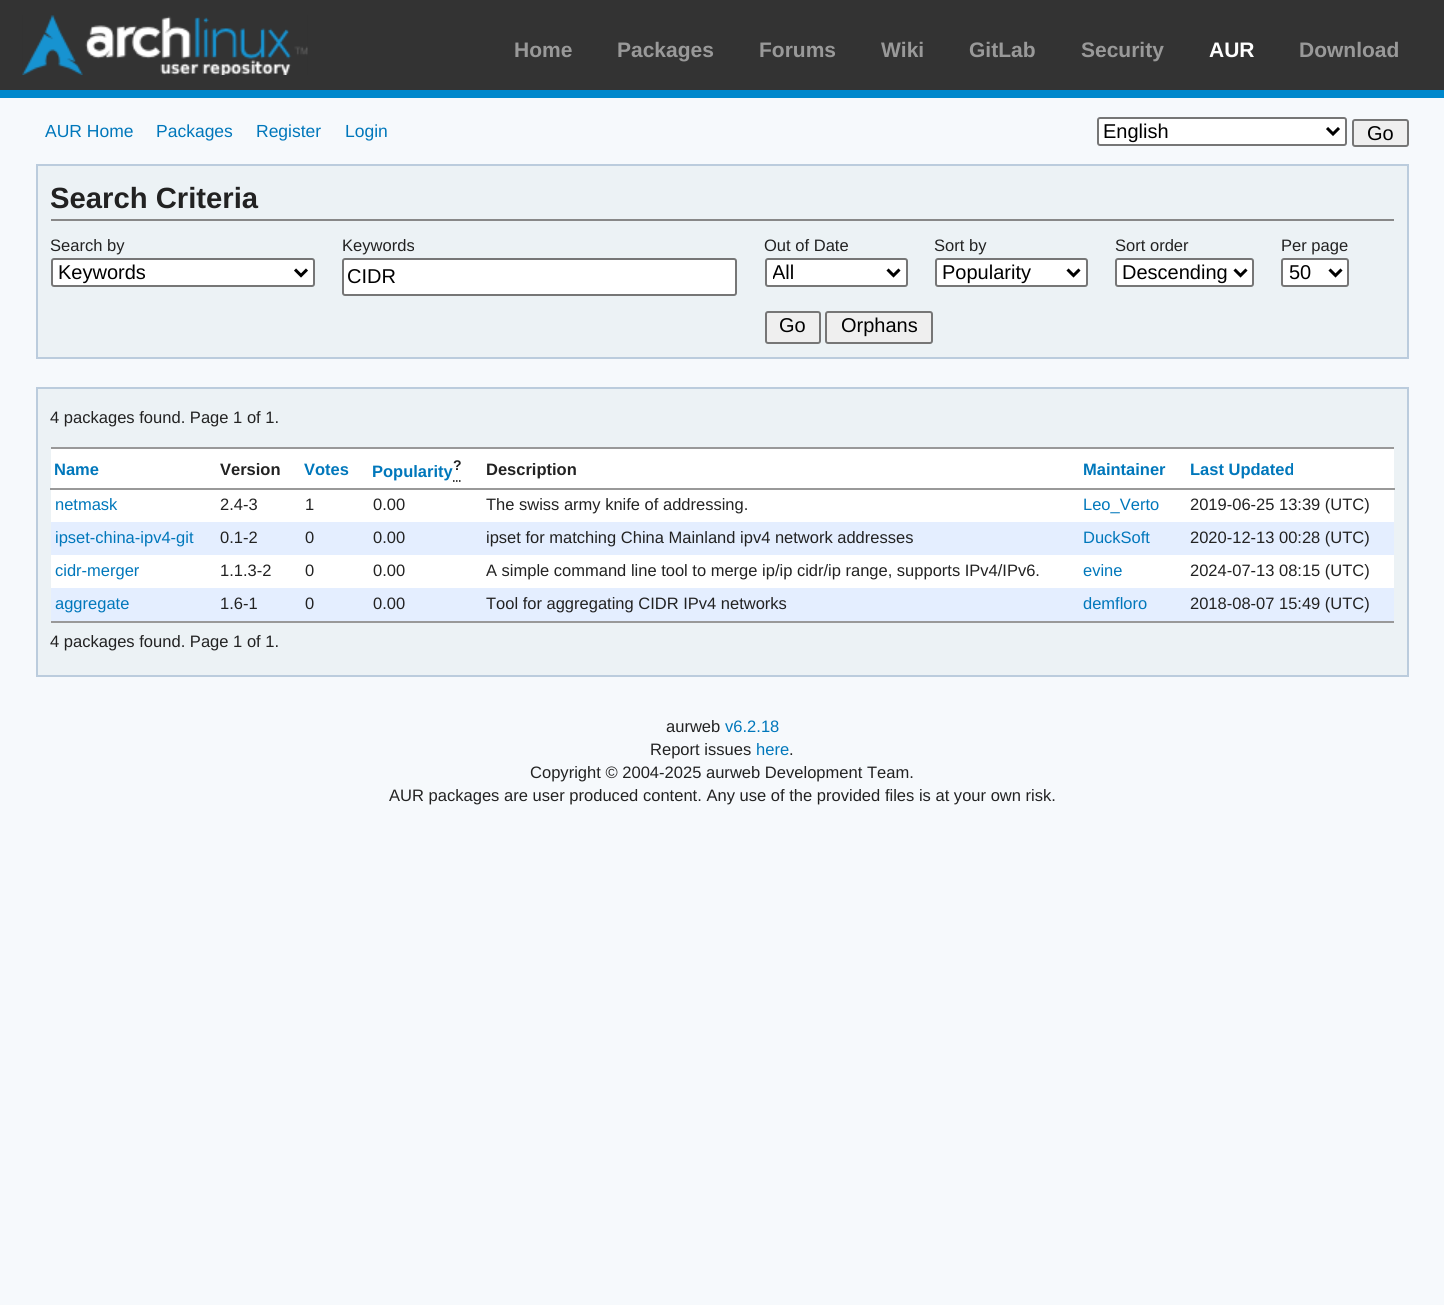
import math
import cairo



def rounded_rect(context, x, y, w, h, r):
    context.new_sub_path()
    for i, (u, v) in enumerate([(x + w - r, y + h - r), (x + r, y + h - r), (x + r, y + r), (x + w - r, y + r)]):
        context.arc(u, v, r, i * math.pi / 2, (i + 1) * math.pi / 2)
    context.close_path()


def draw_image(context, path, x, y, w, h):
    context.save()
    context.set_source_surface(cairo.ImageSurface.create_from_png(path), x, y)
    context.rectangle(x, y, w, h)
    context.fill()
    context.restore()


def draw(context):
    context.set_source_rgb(246 / 255, 249 / 255, 252 / 255)
    context.paint()
    context.set_source_rgb(51 / 255, 51 / 255, 51 / 255)
    context.rectangle(0, 0, 1444, 90)
    context.fill()
    context.set_source_rgb(0, 136 / 255, 204 / 255)
    context.rectangle(0, 90, 1444, 8)
    context.fill()
    draw_image(context, "images/1.png", 22, 15, 286, 60)
    context.set_source_rgb(1, 1, 1)
    rounded_rect(context, 1098, 118, 248, 27, 2)
    context.fill_preserve()
    context.set_source_rgb(118 / 255, 118 / 255, 118 / 255)
    context.stroke()
    context.new_path()
    context.move_to(1327, 128)
    context.line_to(1333, 134)
    context.line_to(1339, 128)
    context.set_source_rgb(0, 0, 0)
    context.set_line_width(3)
    context.stroke()
    context.set_source_rgb(239 / 255, 239 / 255, 239 / 255)
    rounded_rect(context, 1353, 120, 55, 26, 2)
    context.fill_preserve()
    context.set_source_rgb(118 / 255, 118 / 255, 118 / 255)
    context.set_line_width(2)
    context.stroke()
    context.set_source_rgb(236 / 255, 242 / 255, 245 / 255)
    context.rectangle(37, 165, 1371, 193)
    context.fill_preserve()
    context.set_source_rgb(187 / 255, 204 / 255, 221 / 255)
    context.stroke()
    context.set_source_rgb(136 / 255, 136 / 255, 136 / 255)
    context.rectangle(51, 219, 1343, 2)
    context.fill()
    context.set_source_rgb(1, 1, 1)
    rounded_rect(context, 52, 259, 262, 27, 2)
    context.fill_preserve()
    context.set_source_rgb(118 / 255, 118 / 255, 118 / 255)
    context.stroke()
    context.new_path()
    context.move_to(295, 269.5)
    context.line_to(301, 275.5)
    context.line_to(307, 269.5)
    context.set_source_rgb(0, 0, 0)
    context.set_line_width(3)
    context.stroke()
    context.set_source_rgb(1, 1, 1)
    rounded_rect(context, 343, 259, 393, 36, 2)
    context.fill_preserve()
    context.set_source_rgb(118 / 255, 118 / 255, 118 / 255)
    context.set_line_width(2)
    context.stroke()
    context.set_source_rgb(1, 1, 1)
    rounded_rect(context, 766, 259, 141, 27, 2)
    context.fill_preserve()
    context.set_source_rgb(118 / 255, 118 / 255, 118 / 255)
    context.stroke()
    context.new_path()
    context.move_to(887.5, 269.5)
    context.line_to(893.5, 275.5)
    context.line_to(899.5, 269.5)
    context.set_source_rgb(0, 0, 0)
    context.set_line_width(3)
    context.stroke()
    context.set_source_rgb(1, 1, 1)
    rounded_rect(context, 936, 259, 151, 27, 2)
    context.fill_preserve()
    context.set_source_rgb(118 / 255, 118 / 255, 118 / 255)
    context.set_line_width(2)
    context.stroke()
    context.new_path()
    context.move_to(1067.5, 269.5)
    context.line_to(1073.5, 275.5)
    context.line_to(1079.5, 269.5)
    context.set_source_rgb(0, 0, 0)
    context.set_line_width(3)
    context.stroke()
    context.set_source_rgb(1, 1, 1)
    rounded_rect(context, 1116, 259, 137, 27, 2)
    context.fill_preserve()
    context.set_source_rgb(118 / 255, 118 / 255, 118 / 255)
    context.set_line_width(2)
    context.stroke()
    context.new_path()
    context.move_to(1234.5, 269.5)
    context.line_to(1240.5, 275.5)
    context.line_to(1246.5, 269.5)
    context.set_source_rgb(0, 0, 0)
    context.set_line_width(3)
    context.stroke()
    context.set_source_rgb(1, 1, 1)
    rounded_rect(context, 1282, 259, 66, 27, 2)
    context.fill_preserve()
    context.set_source_rgb(118 / 255, 118 / 255, 118 / 255)
    context.set_line_width(2)
    context.stroke()
    context.new_path()
    context.move_to(1329.5, 269.5)
    context.line_to(1335.5, 275.5)
    context.line_to(1341.5, 269.5)
    context.set_source_rgb(0, 0, 0)
    context.set_line_width(3)
    context.stroke()
    context.set_source_rgb(239 / 255, 239 / 255, 239 / 255)
    rounded_rect(context, 766, 312, 54, 31, 2)
    context.fill_preserve()
    context.set_source_rgb(118 / 255, 118 / 255, 118 / 255)
    context.set_line_width(2)
    context.stroke()
    context.set_source_rgb(239 / 255, 239 / 255, 239 / 255)
    rounded_rect(context, 826, 312, 106, 31, 2)
    context.fill_preserve()
    context.set_source_rgb(118 / 255, 118 / 255, 118 / 255)
    context.stroke()
    context.set_source_rgb(236 / 255, 242 / 255, 245 / 255)
    context.rectangle(37, 388, 1371, 288)
    context.fill_preserve()
    context.set_source_rgb(187 / 255, 204 / 255, 221 / 255)
    context.stroke()
    context.set_source_rgb(153 / 255, 153 / 255, 153 / 255)
    context.rectangle(51, 447, 1343, 2)
    context.fill()
    context.rectangle(51, 621, 1343, 2)
    context.fill()
    context.set_source_rgb(1, 1, 1)
    context.rectangle(51, 449, 1343, 39)
    context.fill()
    context.new_path()
    context.move_to(453, 481)
    context.line_to(454.5, 481)
    context.move_to(456, 481)
    context.line_to(457.5, 481)
    context.move_to(459, 481)
    context.line_to(460.5, 481)
    context.set_source_rgb(0, 0, 0)
    context.set_line_width(1.5)
    context.stroke()
    context.set_source_rgb(153 / 255, 153 / 255, 153 / 255)
    context.rectangle(50, 488, 1345, 2)
    context.fill()
    context.set_source_rgb(1, 1, 1)
    context.rectangle(51, 490, 1343, 32)
    context.fill()
    context.set_source_rgb(228 / 255, 238 / 255, 1)
    context.rectangle(51, 522, 1343, 33)
    context.fill()
    context.set_source_rgb(1, 1, 1)
    context.rectangle(51, 555, 1343, 33)
    context.fill()
    context.set_source_rgb(228 / 255, 238 / 255, 1)
    context.rectangle(51, 588, 1343, 33)
    context.fill()
    context.select_font_face("Liberation Sans", cairo.FontSlant.NORMAL, cairo.FontWeight.BOLD)
    context.set_font_size(21)
    context.set_source_rgb(153 / 255, 153 / 255, 153 / 255)
    context.move_to(514, 57)
    context.show_text("Home")
    context.move_to(617, 57)
    context.show_text("Packages")
    context.move_to(759, 57)
    context.show_text("Forums")
    context.move_to(881, 57)
    context.show_text("Wiki")
    context.move_to(969, 57)
    context.show_text("GitLab")
    context.move_to(1081, 57)
    context.show_text("Security")
    context.set_source_rgb(1, 1, 1)
    context.move_to(1209, 57)
    context.show_text("AUR")
    context.set_source_rgb(153 / 255, 153 / 255, 153 / 255)
    context.move_to(1299, 57)
    context.show_text("Download")
    context.select_font_face("Liberation Sans")
    context.set_font_size(17.5)
    context.set_source_rgb(0, 119 / 255, 187 / 255)
    context.move_to(45, 137)
    context.show_text("AUR Home")
    context.move_to(156, 137)
    context.show_text("Packages")
    context.move_to(256, 137)
    context.show_text("Register")
    context.move_to(345, 137)
    context.show_text("Login")
    context.set_font_size(20)
    context.set_source_rgb(0, 0, 0)
    context.move_to(1103, 138)
    context.show_text("English")
    context.move_to(1367, 140)
    context.show_text("Go")
    context.select_font_face("Liberation Sans", cairo.FontSlant.NORMAL, cairo.FontWeight.BOLD)
    context.set_font_size(29.25)
    context.set_source_rgb(34 / 255, 34 / 255, 34 / 255)
    context.move_to(50, 208)
    context.show_text("Search Criteria")
    context.select_font_face("Liberation Sans")
    context.set_font_size(16.55)
    context.move_to(50, 251)
    context.show_text("Search by")
    context.set_font_size(20)
    context.set_source_rgb(0, 0, 0)
    context.move_to(58, 279)
    context.show_text("Keywords")
    context.set_font_size(16.55)
    context.set_source_rgb(34 / 255, 34 / 255, 34 / 255)
    context.move_to(342, 251)
    context.show_text("Keywords")
    context.set_font_size(20)
    context.set_source_rgb(0, 0, 0)
    context.move_to(347, 283)
    context.show_text("CIDR")
    context.set_font_size(16.55)
    context.set_source_rgb(34 / 255, 34 / 255, 34 / 255)
    context.move_to(764, 251)
    context.show_text("Out of Date")
    context.save()
    context.rectangle(773, 260, 109, 25)
    context.clip()
    context.set_font_size(20)
    context.set_source_rgb(0, 0, 0)
    context.move_to(772, 279)
    context.show_text("All")
    context.restore()
    context.move_to(934, 251)
    context.show_text("Sort by")
    context.set_font_size(20)
    context.set_source_rgb(0, 0, 0)
    context.move_to(942, 279)
    context.show_text("Popularity")
    context.set_font_size(16.55)
    context.set_source_rgb(34 / 255, 34 / 255, 34 / 255)
    context.move_to(1115, 251)
    context.show_text("Sort order")
    context.set_font_size(20)
    context.set_source_rgb(0, 0, 0)
    context.move_to(1122, 279)
    context.show_text("Descending")
    context.set_font_size(16.55)
    context.set_source_rgb(34 / 255, 34 / 255, 34 / 255)
    context.move_to(1281, 251)
    context.show_text("Per page")
    context.set_font_size(20)
    context.set_source_rgb(0, 0, 0)
    context.move_to(1289, 279)
    context.show_text("50")
    context.move_to(779, 332)
    context.show_text("Go")
    context.move_to(841, 332)
    context.show_text("Orphans")
    context.set_font_size(16.55)
    context.set_source_rgb(34 / 255, 34 / 255, 34 / 255)
    context.move_to(50, 423)
    context.show_text("4 packages found. Page 1 of 1.")
    context.select_font_face("Liberation Sans", cairo.FontSlant.NORMAL, cairo.FontWeight.BOLD)
    context.set_font_size(16.5)
    context.set_source_rgb(0, 119 / 255, 187 / 255)
    context.move_to(54, 475)
    context.show_text("Name")
    context.set_source_rgb(34 / 255, 34 / 255, 34 / 255)
    context.move_to(220, 475)
    context.show_text("Version")
    context.set_source_rgb(0, 119 / 255, 187 / 255)
    context.move_to(304, 475)
    context.show_text("Votes")
    context.move_to(372, 477)
    context.show_text("Popularity")
    context.set_font_size(14)
    context.set_source_rgb(34 / 255, 34 / 255, 34 / 255)
    context.move_to(453, 470)
    context.show_text("?")
    context.set_font_size(16.5)
    context.move_to(486, 475)
    context.show_text("Description")
    context.set_source_rgb(0, 119 / 255, 187 / 255)
    context.move_to(1083, 475)
    context.show_text("Maintainer")
    context.move_to(1190, 475)
    context.show_text("Last Updated")
    context.select_font_face("Liberation Sans")
    context.move_to(55, 510)
    context.show_text("netmask")
    context.set_source_rgb(34 / 255, 34 / 255, 34 / 255)
    context.move_to(220, 510)
    context.show_text("2.4-3")
    context.move_to(305, 510)
    context.show_text("1")
    context.move_to(373, 510)
    context.show_text("0.00")
    context.move_to(486, 510)
    context.show_text("The swiss army knife of addressing.")
    context.set_source_rgb(0, 119 / 255, 187 / 255)
    context.move_to(1083, 510)
    context.show_text("Leo_Verto")
    context.set_source_rgb(34 / 255, 34 / 255, 34 / 255)
    context.move_to(1190, 510)
    context.show_text("2019-06-25 13:39 (UTC)")
    context.set_source_rgb(0, 119 / 255, 187 / 255)
    context.move_to(55, 543)
    context.show_text("ipset-china-ipv4-git")
    context.set_source_rgb(34 / 255, 34 / 255, 34 / 255)
    context.move_to(220, 543)
    context.show_text("0.1-2")
    context.move_to(305, 543)
    context.show_text("0")
    context.move_to(373, 543)
    context.show_text("0.00")
    context.move_to(486, 543)
    context.show_text("ipset for matching China Mainland ipv4 network addresses")
    context.set_source_rgb(0, 119 / 255, 187 / 255)
    context.move_to(1083, 543)
    context.show_text("DuckSoft")
    context.set_source_rgb(34 / 255, 34 / 255, 34 / 255)
    context.move_to(1190, 543)
    context.show_text("2020-12-13 00:28 (UTC)")
    context.set_source_rgb(0, 119 / 255, 187 / 255)
    context.move_to(55, 576)
    context.show_text("cidr-merger")
    context.set_source_rgb(34 / 255, 34 / 255, 34 / 255)
    context.move_to(220, 576)
    context.show_text("1.1.3-2")
    context.move_to(305, 576)
    context.show_text("0")
    context.move_to(373, 576)
    context.show_text("0.00")
    context.move_to(486, 576)
    context.show_text("A simple command line tool to merge ip/ip cidr/ip range, supports IPv4/IPv6.")
    context.set_source_rgb(0, 119 / 255, 187 / 255)
    context.move_to(1083, 576)
    context.show_text("evine")
    context.set_source_rgb(34 / 255, 34 / 255, 34 / 255)
    context.move_to(1190, 576)
    context.show_text("2024-07-13 08:15 (UTC)")
    context.set_source_rgb(0, 119 / 255, 187 / 255)
    context.move_to(55, 609)
    context.show_text("aggregate")
    context.set_source_rgb(34 / 255, 34 / 255, 34 / 255)
    context.move_to(220, 609)
    context.show_text("1.6-1")
    context.move_to(305, 609)
    context.show_text("0")
    context.move_to(373, 609)
    context.show_text("0.00")
    context.move_to(486, 609)
    context.show_text("Tool for aggregating CIDR IPv4 networks")
    context.set_source_rgb(0, 119 / 255, 187 / 255)
    context.move_to(1083, 609)
    context.show_text("demfloro")
    context.set_source_rgb(34 / 255, 34 / 255, 34 / 255)
    context.move_to(1190, 609)
    context.show_text("2018-08-07 15:49 (UTC)")
    context.set_font_size(16.55)
    context.move_to(50, 647)
    context.show_text("4 packages found. Page 1 of 1.")
    context.move_to(666, 732)
    context.show_text("aurweb")
    context.set_source_rgb(0, 119 / 255, 187 / 255)
    context.move_to(725, 732)
    context.show_text("v6.2.18")
    context.set_source_rgb(34 / 255, 34 / 255, 34 / 255)
    context.move_to(650, 755)
    context.show_text("Report issues")
    context.set_source_rgb(0, 119 / 255, 187 / 255)
    context.move_to(756, 755)
    context.show_text("here")
    context.set_source_rgb(34 / 255, 34 / 255, 34 / 255)
    context.move_to(789, 755)
    context.show_text(".")
    context.move_to(530, 778)
    context.show_text("Copyright © 2004-2025 aurweb Development Team.")
    context.move_to(389, 801)
    context.show_text("AUR packages are user produced content. Any use of the provided files is at your own risk.")


surface = cairo.ImageSurface(cairo.Format.RGB24, 1444, 1305)
context = cairo.Context(surface)
options = cairo.FontOptions()
options.set_hint_metrics(cairo.HintMetrics.OFF)
options.set_hint_style(cairo.HintStyle.NONE)
context.set_font_options(options)
context.set_miter_limit(4)
draw(context)
surface.write_to_png("out.png")
